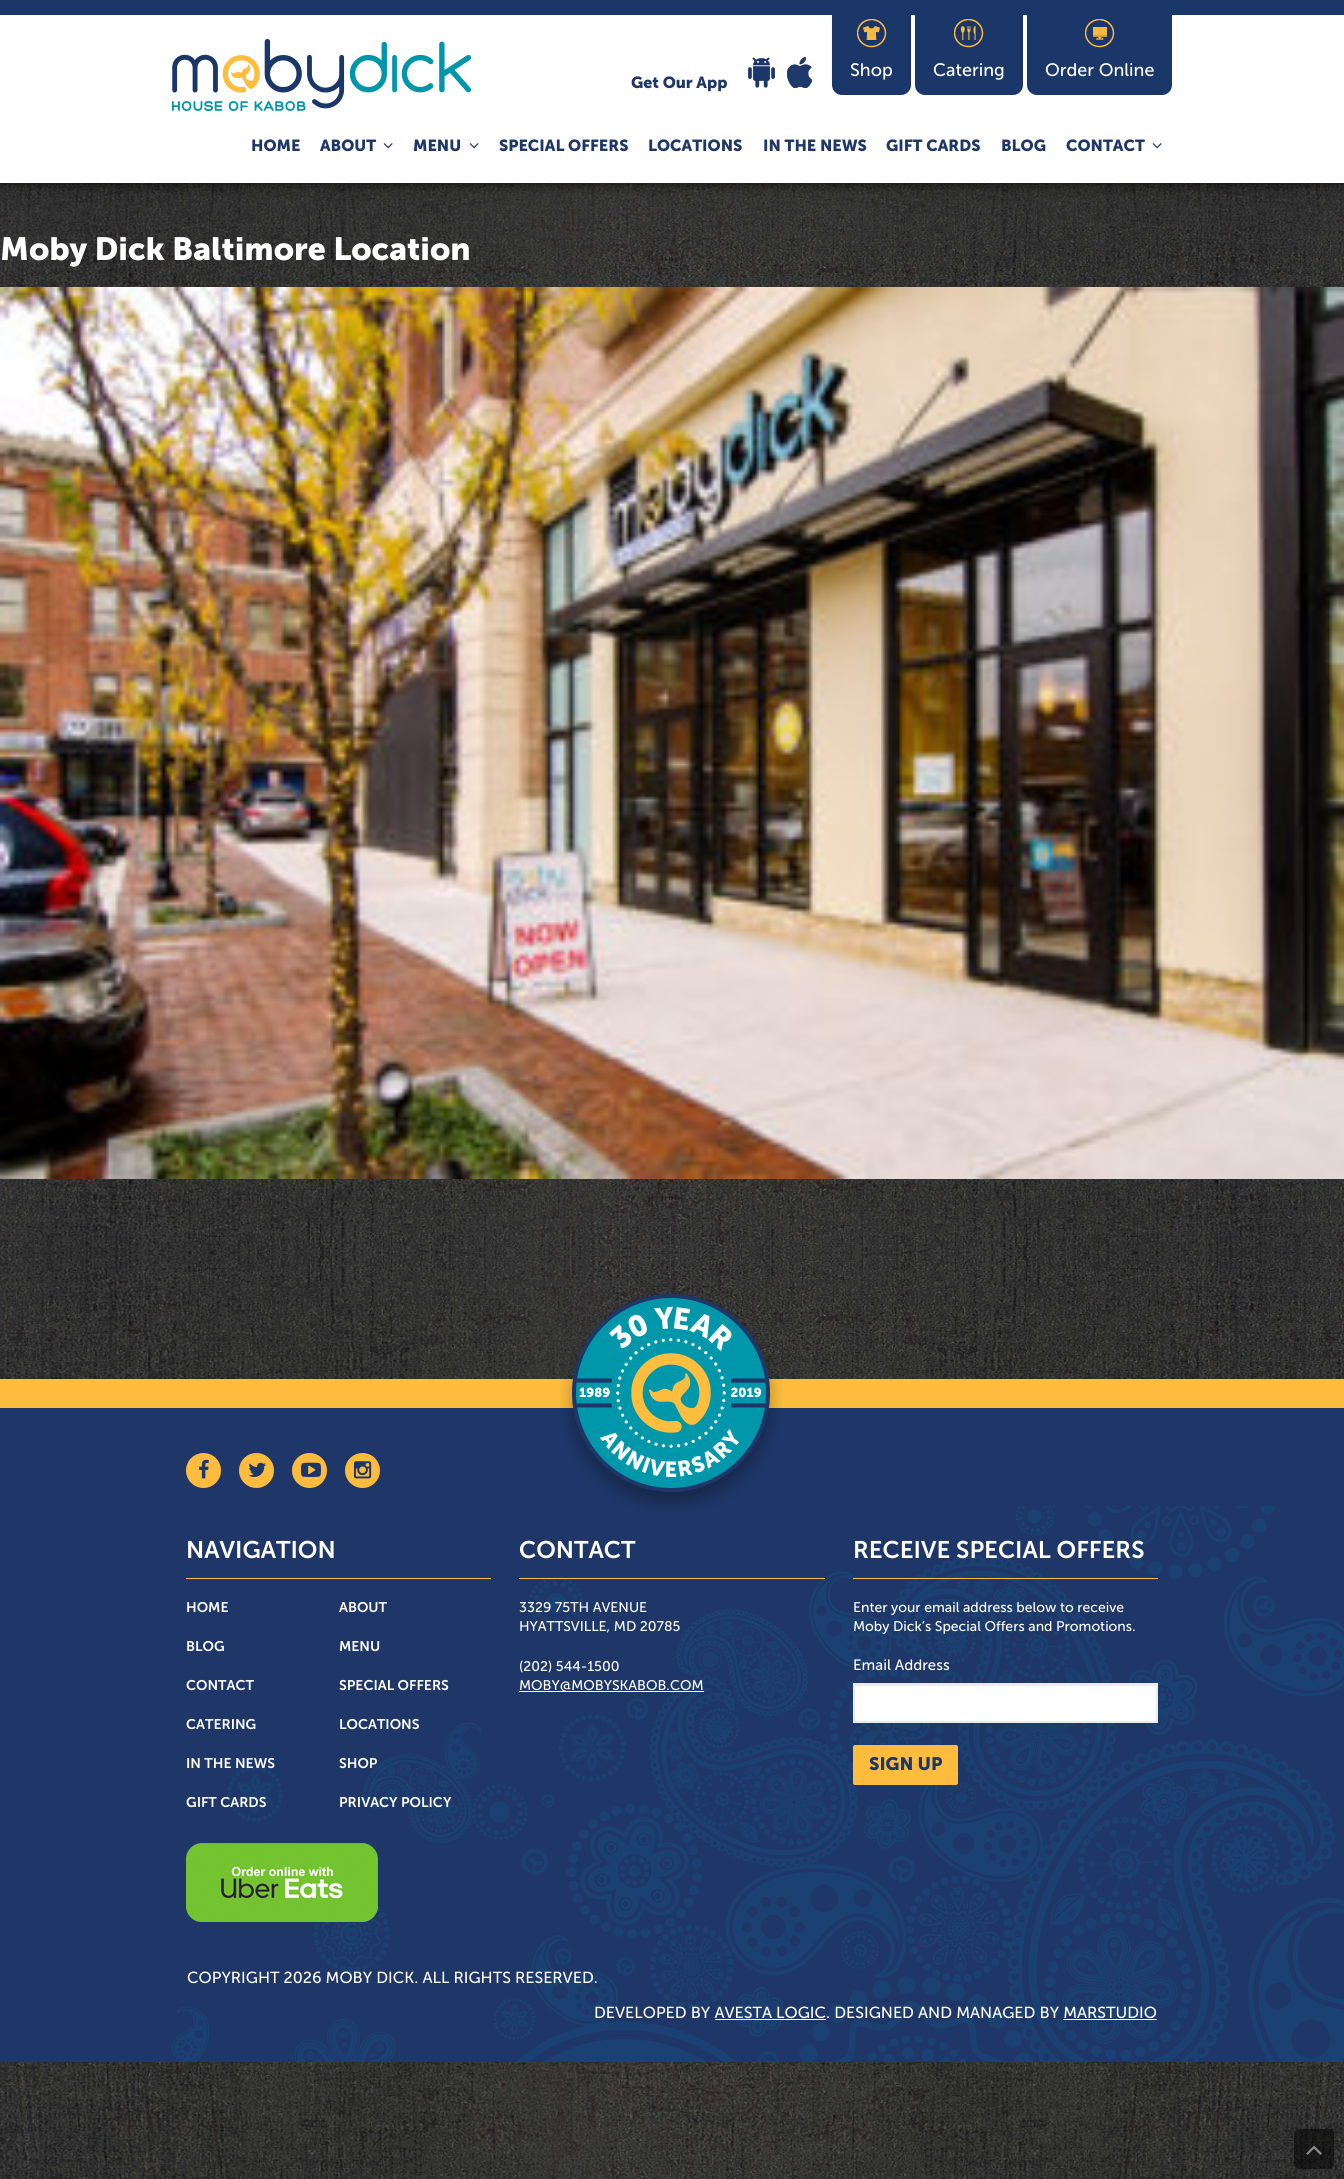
import math
import cairo



def rounded_rect(context, x, y, w, h, r):
    context.new_sub_path()
    for i, (u, v) in enumerate([(x + w - r, y + h - r), (x + r, y + h - r), (x + r, y + r), (x + w - r, y + r)]):
        context.arc(u, v, r, i * math.pi / 2, (i + 1) * math.pi / 2)
    context.close_path()


def draw_shadow(context, x, y, w, h, r, blur, alpha):
    context.push_group_with_content(cairo.Content.ALPHA)
    context.set_operator(cairo.Operator.SOURCE)
    for i in range(15, -16, -2):
        e = blur * i / 6
        if min(w, h) + 2 * e > 0:
            context.set_source_rgba(0, 0, 0, alpha * math.erfc((i - 1) / 8.5) / 2)
            rounded_rect(context, x - e, y - e, w + 2 * e, h + 2 * e, max(0, min(r + e + blur * .6, min(w, h) / 2 + e)))
            context.fill()
    context.mask(context.pop_group())


def draw_image(context, path, x, y, w, h):
    context.save()
    context.set_source_surface(cairo.ImageSurface.create_from_png(path), x, y)
    context.rectangle(x, y, w, h)
    context.fill()
    context.restore()


def draw(context):
    context.set_source_rgb(1, 1, 1)
    context.paint()
    draw_image(context, "images/1.png", 0, 183, 1344, 1996)
    context.set_source_rgb(0, 0, 0)
    draw_shadow(context, 0, 1, 1344, 183, 0, 6, 0.7)
    context.set_source_rgb(1, 1, 1)
    context.rectangle(0, 15, 1344, 168)
    context.fill()
    context.set_source_rgb(27 / 255, 54 / 255, 104 / 255)
    context.rectangle(0, 0, 1344, 15)
    context.fill()
    draw_image(context, "images/2.png", 172, 39, 299, 72)
    context.new_path()
    context.move_to(832, 15)
    context.line_to(911, 15)
    context.line_to(911, 85)
    context.curve_to(911, 90.5, 906.5, 95, 901, 95)
    context.line_to(842, 95)
    context.curve_to(836.5, 95, 832, 90.5, 832, 85)
    context.close_path()
    context.fill()
    draw_image(context, "images/3.png", 857, 19, 30, 29)
    context.new_path()
    context.move_to(915, 15)
    context.line_to(1023, 15)
    context.line_to(1023, 85)
    context.curve_to(1023, 90.5, 1018.5, 95, 1013, 95)
    context.line_to(925, 95)
    context.curve_to(919.5, 95, 915, 90.5, 915, 85)
    context.close_path()
    context.fill()
    draw_image(context, "images/4.png", 954, 19, 30, 29)
    context.new_path()
    context.move_to(1027, 15)
    context.line_to(1172, 15)
    context.line_to(1172, 85)
    context.curve_to(1172, 90.5, 1167.5, 95, 1162, 95)
    context.line_to(1037, 95)
    context.curve_to(1031.5, 95, 1027, 90.5, 1027, 85)
    context.close_path()
    context.fill()
    draw_image(context, "images/5.png", 1085, 19, 30, 29)
    draw_image(context, "images/6.png", 748, 57, 27, 31)
    draw_image(context, "images/7.png", 787, 57, 25, 31)
    draw_image(context, "images/8.png", 383, 143, 10, 6)
    draw_image(context, "images/8.png", 469, 143, 10, 6)
    draw_image(context, "images/8.png", 1152, 143, 10, 6)
    draw_image(context, "images/9.png", 0, 287, 1344, 892)
    context.set_source_rgba(0, 0, 0, 0.5)
    rounded_rect(context, 1294, 2129, 40, 40, 5)
    context.fill()
    draw_image(context, "images/10.png", 1306, 2145, 16, 10)
    context.set_source_rgb(253 / 255, 188 / 255, 62 / 255)
    context.rectangle(0, 1379, 1344, 29)
    context.fill()
    context.set_source_rgb(30 / 255, 55 / 255, 104 / 255)
    context.rectangle(0, 1408, 1344, 654)
    context.fill()
    draw_image(context, "images/12.png", 172, 1506, 1172, 556)
    draw_image(context, "images/11.png", 560, 1294, 222, 218)
    context.set_source_rgb(253 / 255, 188 / 255, 62 / 255)
    context.arc(203.5, 1470.5, 17.5, 0, 2 * math.pi)
    context.fill()
    draw_image(context, "images/13.png", 199, 1459, 10, 20)
    context.arc(256.5, 1470.5, 17.5, 0, 2 * math.pi)
    context.fill()
    draw_image(context, "images/14.png", 248, 1462, 18, 15)
    context.arc(309.5, 1470.5, 17.5, 0, 2 * math.pi)
    context.fill()
    draw_image(context, "images/15.png", 301, 1462, 20, 15)
    context.arc(362.5, 1470.5, 17.5, 0, 2 * math.pi)
    context.fill()
    draw_image(context, "images/16.png", 354, 1461, 18, 18)
    context.rectangle(186, 1578, 305, 1)
    context.fill()
    draw_image(context, "images/17.png", 186, 1843, 192, 79)
    context.rectangle(519, 1578, 306, 1)
    context.fill()
    context.set_source_rgb(1, 1, 1)
    context.rectangle(519, 1691, 185, 1)
    context.fill()
    context.set_source_rgb(253 / 255, 188 / 255, 62 / 255)
    context.rectangle(853, 1578, 305, 1)
    context.fill()
    context.set_source_rgb(1, 1, 1)
    context.rectangle(855, 1686, 301, 35)
    context.fill()
    context.set_source_rgb(236 / 255, 236 / 255, 236 / 255)
    context.rectangle(855, 1685, 301, 1)
    context.fill()
    context.rectangle(854, 1684, 303, 38)
    context.set_source_rgb(235 / 255, 235 / 255, 235 / 255)
    context.stroke()
    context.set_source_rgb(253 / 255, 188 / 255, 62 / 255)
    rounded_rect(context, 853, 1745, 105, 40, 2)
    context.fill()
    context.set_source_rgb(1, 1, 1)
    context.rectangle(715, 2019, 111, 1)
    context.fill()
    context.rectangle(1063, 2019, 94, 1)
    context.fill()
    context.select_font_face("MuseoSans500")
    context.set_font_size(18)
    context.move_to(850, 76)
    context.show_text("Shop")
    context.move_to(933, 76)
    context.show_text("Catering")
    context.move_to(1045, 76)
    context.show_text("Order Online")
    context.select_font_face("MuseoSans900")
    context.set_font_size(16)
    context.set_source_rgb(30 / 255, 55 / 255, 104 / 255)
    context.move_to(631, 88)
    context.show_text("Get Our App")
    context.move_to(251, 151)
    context.show_text("HOME")
    context.move_to(320, 151)
    context.show_text("ABOUT")
    context.move_to(413, 151)
    context.show_text("MENU")
    context.move_to(499, 151)
    context.show_text("SPECIAL OFFERS")
    context.move_to(648, 151)
    context.show_text("LOCATIONS")
    context.move_to(763, 151)
    context.show_text("IN THE NEWS")
    context.move_to(886, 151)
    context.show_text("GIFT CARDS")
    context.move_to(1001, 151)
    context.show_text("BLOG")
    context.move_to(1066, 151)
    context.show_text("CONTACT")
    context.set_font_size(32)
    context.set_source_rgb(1, 1, 1)
    context.move_to(0, 260)
    context.show_text("Moby Dick Baltimore Location")
    context.select_font_face("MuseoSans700")
    context.set_font_size(24)
    context.move_to(186, 1558)
    context.show_text("NAVIGATION")
    context.set_font_size(14)
    context.move_to(186, 1612)
    context.show_text("HOME")
    context.move_to(339, 1612)
    context.show_text("ABOUT")
    context.move_to(186, 1651)
    context.show_text("BLOG")
    context.move_to(339, 1651)
    context.show_text("MENU")
    context.move_to(186, 1690)
    context.show_text("CONTACT")
    context.move_to(339, 1690)
    context.show_text("SPECIAL OFFERS")
    context.move_to(186, 1729)
    context.show_text("CATERING")
    context.move_to(339, 1729)
    context.show_text("LOCATIONS")
    context.move_to(186, 1768)
    context.show_text("IN THE NEWS")
    context.move_to(339, 1768)
    context.show_text("SHOP")
    context.move_to(186, 1807)
    context.show_text("GIFT CARDS")
    context.move_to(339, 1807)
    context.show_text("PRIVACY POLICY")
    context.set_font_size(24)
    context.move_to(519, 1558)
    context.show_text("CONTACT")
    context.select_font_face("MuseoSans500")
    context.set_font_size(14)
    context.move_to(519, 1612)
    context.show_text("3329 75TH AVENUE")
    context.move_to(519, 1631)
    context.show_text("HYATTSVILLE, MD 20785")
    context.move_to(519, 1671)
    context.show_text("(202) 544-1500")
    context.move_to(519, 1690)
    context.show_text("MOBY@MOBYSKABOB.COM")
    context.select_font_face("MuseoSans700")
    context.set_font_size(24)
    context.move_to(853, 1558)
    context.show_text("RECEIVE SPECIAL OFFERS")
    context.select_font_face("MuseoSans500")
    context.set_font_size(14)
    context.move_to(853, 1612)
    context.show_text("Enter your email address below to receive")
    context.move_to(853, 1631)
    context.show_text("Moby Dick’s Special Offers and Promotions.")
    context.set_font_size(15)
    context.move_to(853, 1670)
    context.show_text("Email Address")
    context.select_font_face("MuseoSans900")
    context.set_font_size(18)
    context.set_source_rgb(30 / 255, 55 / 255, 104 / 255)
    context.move_to(869, 1770)
    context.show_text("SIGN UP")
    context.select_font_face("MuseoSans500")
    context.set_font_size(16)
    context.set_source_rgb(1, 1, 1)
    context.move_to(187, 1983)
    context.show_text("COPYRIGHT 2026 MOBY DICK. ALL RIGHTS RESERVED.")
    context.move_to(594, 2018)
    context.show_text("DEVELOPED BY AVESTA LOGIC. DESIGNED AND MANAGED BY MARSTUDIO")


surface = cairo.ImageSurface(cairo.Format.RGB24, 1344, 2179)
context = cairo.Context(surface)
options = cairo.FontOptions()
options.set_hint_metrics(cairo.HintMetrics.OFF)
options.set_hint_style(cairo.HintStyle.NONE)
context.set_font_options(options)
context.set_miter_limit(4)
draw(context)
surface.write_to_png("out.png")
